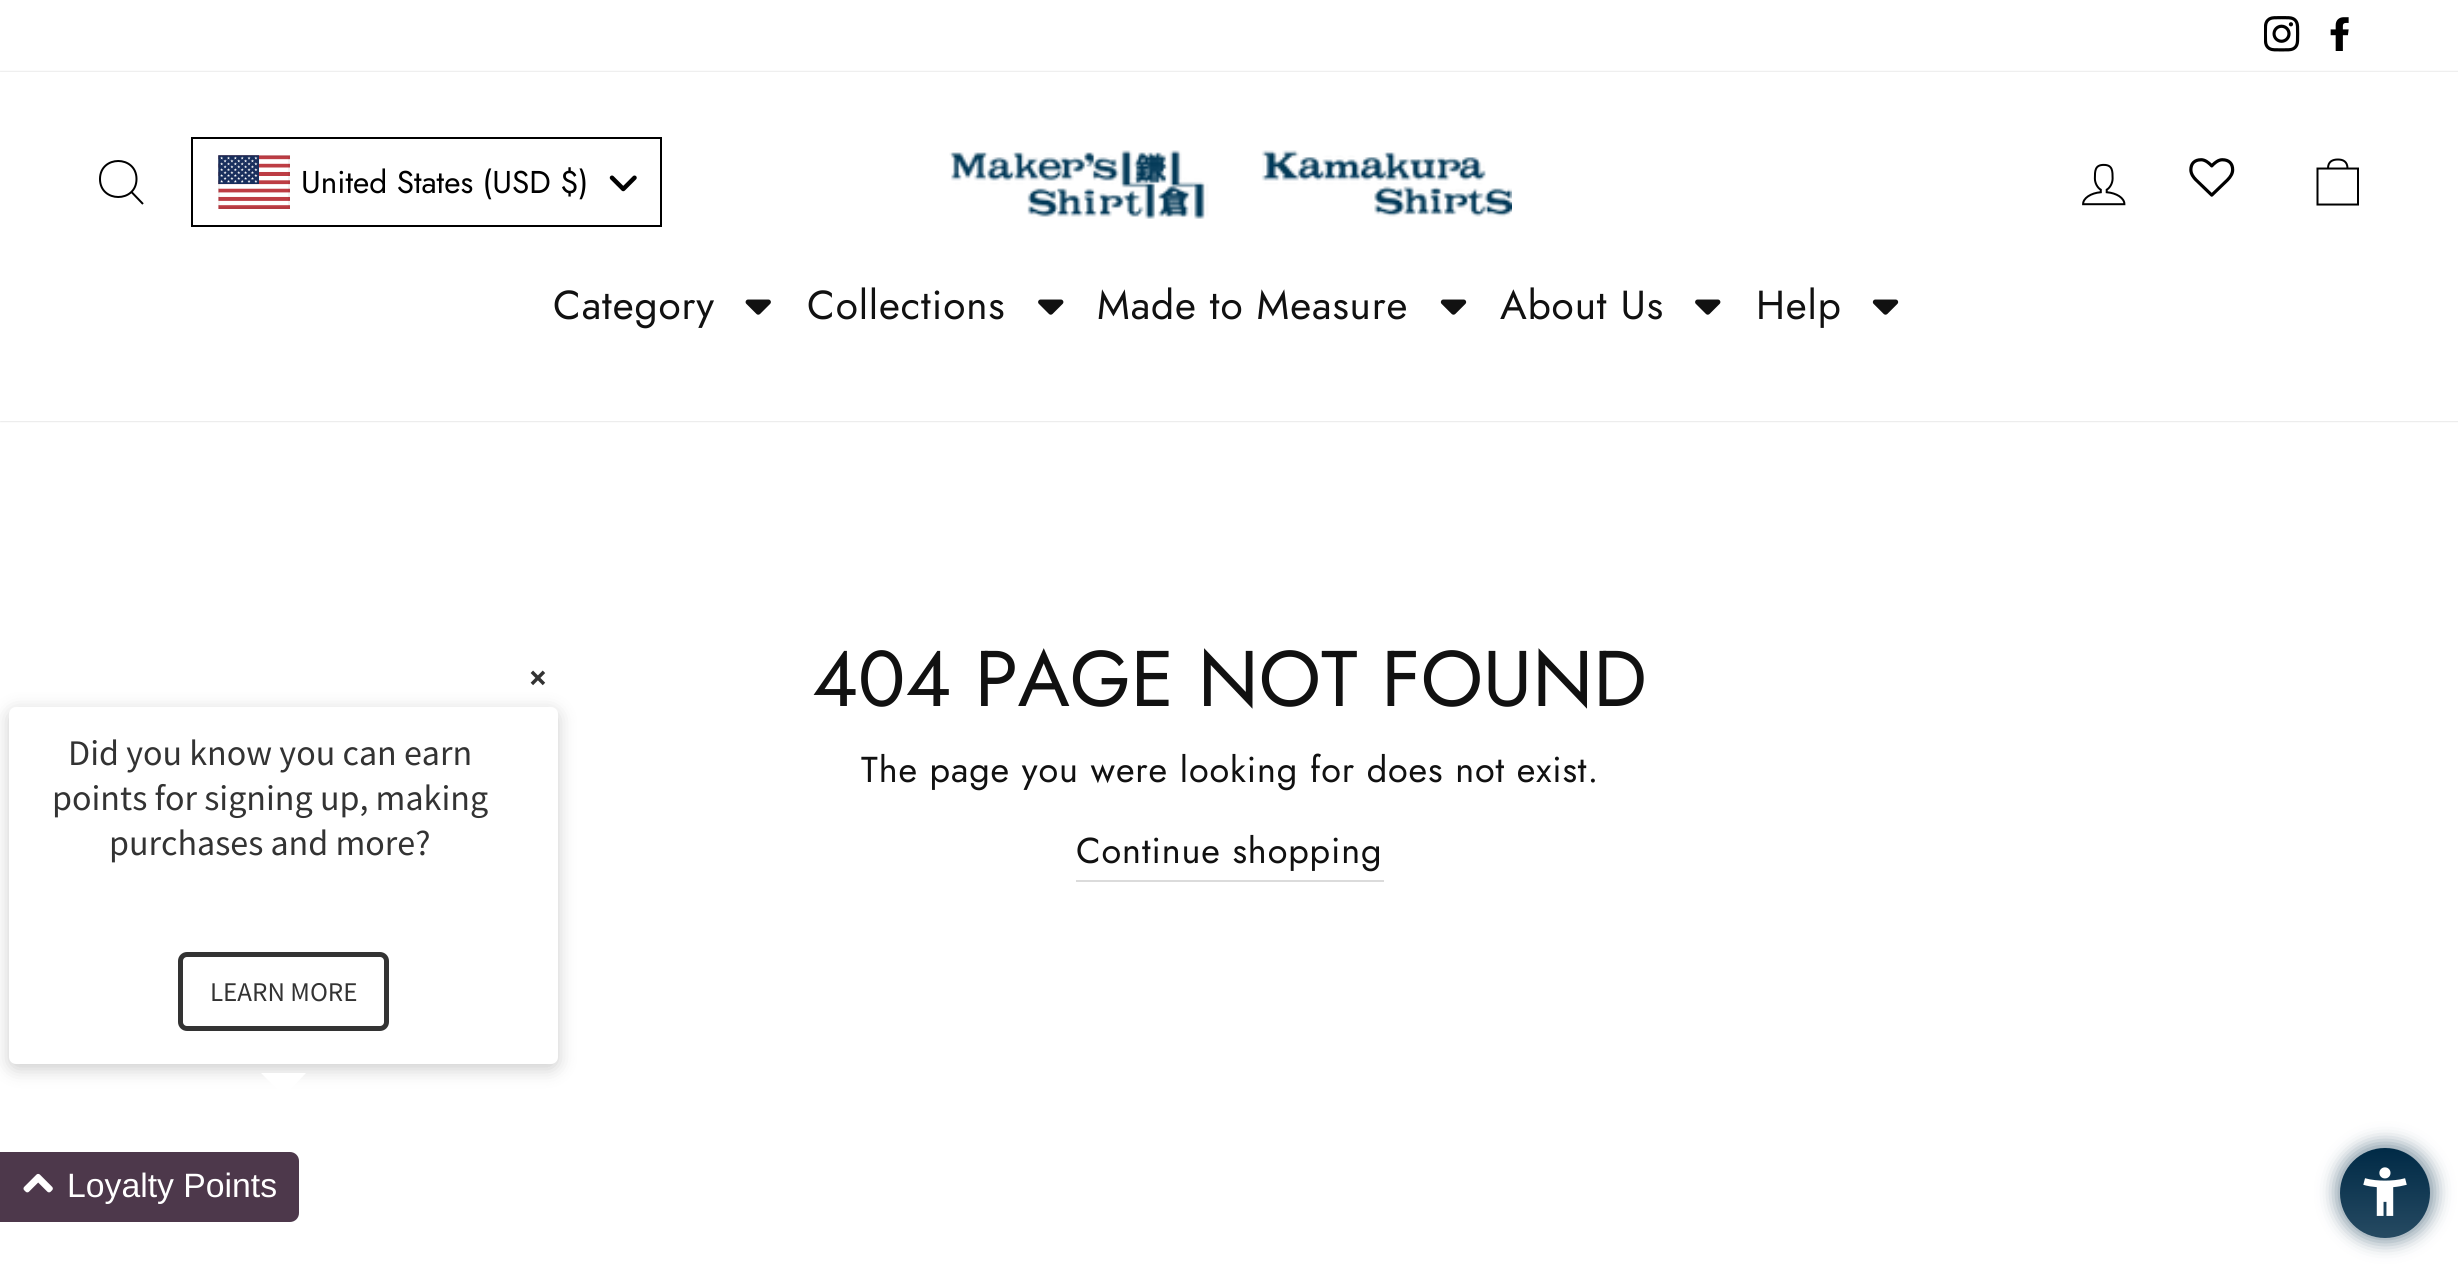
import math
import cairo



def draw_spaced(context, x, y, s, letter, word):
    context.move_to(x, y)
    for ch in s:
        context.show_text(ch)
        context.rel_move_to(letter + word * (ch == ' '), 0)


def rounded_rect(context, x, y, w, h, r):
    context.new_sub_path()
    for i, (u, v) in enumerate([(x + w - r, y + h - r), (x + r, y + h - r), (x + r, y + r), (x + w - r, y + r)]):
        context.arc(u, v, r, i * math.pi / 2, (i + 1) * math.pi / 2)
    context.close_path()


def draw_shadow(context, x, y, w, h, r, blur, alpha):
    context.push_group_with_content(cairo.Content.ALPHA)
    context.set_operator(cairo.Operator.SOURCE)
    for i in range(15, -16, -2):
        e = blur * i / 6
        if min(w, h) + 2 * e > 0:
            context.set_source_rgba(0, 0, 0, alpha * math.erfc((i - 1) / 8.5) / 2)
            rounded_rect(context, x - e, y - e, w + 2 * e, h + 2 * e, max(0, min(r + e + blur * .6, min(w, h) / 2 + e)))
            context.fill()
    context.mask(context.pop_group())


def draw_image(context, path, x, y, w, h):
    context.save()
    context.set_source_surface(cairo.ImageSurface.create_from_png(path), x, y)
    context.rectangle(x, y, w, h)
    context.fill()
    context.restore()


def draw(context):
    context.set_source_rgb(1, 1, 1)
    context.paint()
    draw_image(context, "images/1.png", 2264, 16, 36, 36)
    draw_image(context, "images/2.png", 2330, 17, 19, 34)
    context.set_source_rgb(0, 0, 0)
    draw_shadow(context, 0, 72, 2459, 349, 0, 1, 0.2)
    context.set_source_rgb(1, 1, 1)
    context.rectangle(0, 72, 2458, 349)
    context.fill()
    context.new_path()
    context.move_to(136.5, 179)
    context.curve_to(136.5, 203, 100, 203, 100, 179)
    context.curve_to(100, 155, 136.5, 155, 136.5, 179)
    context.close_path()
    context.move_to(143, 204)
    context.line_to(131.5, 192)
    context.set_source_rgb(0, 0, 0)
    context.stroke()
    draw_image(context, "images/3.png", 609, 175, 28, 17)
    context.rectangle(192, 138, 469, 88)
    context.stroke()
    draw_image(context, "images/4.png", 218, 155, 72, 54)
    context.rectangle(219, 156, 70, 52)
    context.set_source_rgba(0, 0, 0, 0.05)
    context.stroke()
    draw_image(context, "images/5.png", 949, 150, 563, 69)
    draw_image(context, "images/6.png", 2082, 163, 44, 43)
    draw_image(context, "images/7.png", 2189, 158, 46, 39)
    context.new_path()
    context.move_to(2317.5, 168.5)
    context.line_to(2358, 168.5)
    context.line_to(2358, 204.5)
    context.line_to(2317.5, 204.5)
    context.close_path()
    context.move_to(2328, 168.5)
    context.curve_to(2328, 161.5, 2332.5, 159.5, 2338, 159.5)
    context.curve_to(2343, 159.5, 2347.5, 161.5, 2347.5, 168.5)
    context.set_source_rgb(0, 0, 0)
    context.stroke()
    draw_image(context, "images/8.png", 745, 299, 26, 16)
    draw_image(context, "images/9.png", 1038, 299, 26, 16)
    draw_image(context, "images/10.png", 1440, 299, 27, 16)
    draw_image(context, "images/9.png", 1695, 299, 26, 16)
    draw_image(context, "images/10.png", 1872, 299, 27, 16)
    context.set_source_rgb(219 / 255, 219 / 255, 219 / 255)
    context.rectangle(1076, 880, 308, 2)
    context.fill()
    context.set_source_rgb(0, 0, 0)
    draw_shadow(context, 9, 711, 549, 358, 7, 9, 0.2)
    context.set_source_rgb(1, 1, 1)
    rounded_rect(context, 9, 707, 549, 357, 7)
    context.fill()
    rounded_rect(context, 180.5, 954.5, 206, 74, 6.5)
    context.set_source_rgb(51 / 255, 51 / 255, 51 / 255)
    context.set_line_width(5)
    context.stroke()
    context.set_source_rgb(1, 1, 1)
    context.new_path()
    context.move_to(261, 1073)
    context.line_to(306, 1073)
    context.line_to(284, 1096)
    context.close_path()
    context.fill()
    context.set_source_rgb(77 / 255, 56 / 255, 75 / 255)
    context.new_path()
    context.move_to(0, 1152)
    context.line_to(290, 1152)
    context.curve_to(295, 1152, 299, 1156, 299, 1161)
    context.line_to(299, 1213)
    context.curve_to(299, 1218, 295, 1222, 290, 1222)
    context.line_to(0, 1222)
    context.close_path()
    context.fill()
    draw_image(context, "images/11.png", 23, 1173, 30, 20)
    context.set_source_rgb(0, 42 / 255, 70 / 255)
    draw_shadow(context, 2336, 1143, 99, 99, 49.5, 9, 0.5)
    gradient = cairo.LinearGradient(2385, 1148, 2385, 1238)
    gradient.add_color_stop_rgba(0, 0, 42 / 255, 70 / 255, 1)
    gradient.add_color_stop_rgba(1, 38 / 255, 74 / 255, 98 / 255, 1)
    context.set_source(gradient)
    context.arc(2385, 1193, 45, 0, 2 * math.pi)
    context.fill()
    draw_image(context, "images/12.png", 2363, 1167, 44, 49)
    context.select_font_face("Jost")
    context.set_font_size(31.5)
    context.set_source_rgb(0, 0, 0)
    context.move_to(301, 193)
    context.show_text("United States (USD $)")
    context.set_font_size(40.5)
    context.set_source_rgb(17 / 255, 17 / 255, 17 / 255)
    draw_spaced(context, 553, 319, "Category", 0.9, 0)
    draw_spaced(context, 807, 319, "Collections", 0.9, 0)
    draw_spaced(context, 1097, 319, "Made to Measure", 0.9, 0)
    draw_spaced(context, 1500, 319, "About Us", 0.9, 0)
    draw_spaced(context, 1756, 319, "Help", 0.9, 0)
    context.set_font_size(78.75)
    context.move_to(812, 706)
    context.show_text("404 PAGE NOT FOUND")
    context.set_font_size(36)
    draw_spaced(context, 861, 782, "The page you were looking for does not exist.", 0.9, 0)
    draw_spaced(context, 1076, 863, "Continue shopping", 0.9, 0)
    context.select_font_face("Source Sans Pro", cairo.FontSlant.NORMAL, cairo.FontWeight.BOLD)
    context.set_font_size(33.75)
    context.set_source_rgb(51 / 255, 51 / 255, 51 / 255)
    context.move_to(529, 689)
    context.show_text("×")
    context.select_font_face("Source Sans Pro")
    context.set_font_size(36)
    context.move_to(68, 765)
    context.show_text("Did you know you can earn")
    context.move_to(52, 810)
    context.show_text("points for signing up, making")
    context.move_to(109, 855)
    context.show_text("purchases and more?")
    context.set_font_size(27)
    context.move_to(210, 1001)
    context.show_text("LEARN MORE")
    context.select_font_face("Liberation Sans")
    context.set_font_size(33.75)
    context.set_source_rgb(1, 1, 1)
    context.move_to(67, 1197)
    context.show_text("Loyalty Points")


surface = cairo.ImageSurface(cairo.Format.RGB24, 2458, 1265)
context = cairo.Context(surface)
options = cairo.FontOptions()
options.set_hint_metrics(cairo.HintMetrics.OFF)
options.set_hint_style(cairo.HintStyle.NONE)
context.set_font_options(options)
context.set_miter_limit(4)
draw(context)
surface.write_to_png("out.png")
